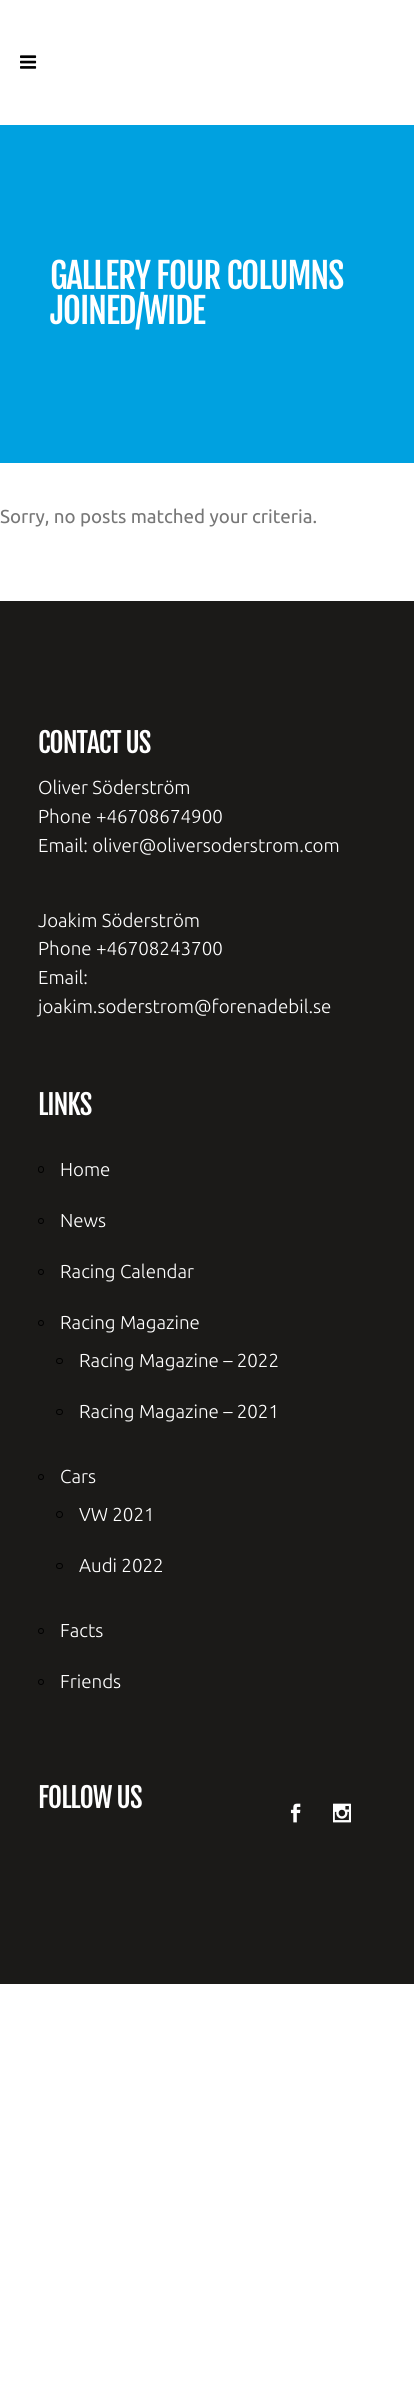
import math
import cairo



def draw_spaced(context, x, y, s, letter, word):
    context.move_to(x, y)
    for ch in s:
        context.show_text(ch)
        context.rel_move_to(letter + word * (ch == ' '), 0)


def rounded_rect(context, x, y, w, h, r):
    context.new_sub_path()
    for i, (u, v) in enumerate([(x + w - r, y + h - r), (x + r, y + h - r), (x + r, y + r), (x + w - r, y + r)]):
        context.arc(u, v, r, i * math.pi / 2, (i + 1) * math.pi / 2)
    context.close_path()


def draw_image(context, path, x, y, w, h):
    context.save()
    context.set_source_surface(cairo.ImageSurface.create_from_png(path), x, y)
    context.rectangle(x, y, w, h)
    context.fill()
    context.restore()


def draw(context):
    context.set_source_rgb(1, 1, 1)
    context.paint()
    draw_image(context, "images/1.png", 20, 55, 17, 14)
    context.set_source_rgb(0, 161 / 255, 224 / 255)
    context.rectangle(0, 125, 414, 338)
    context.fill()
    context.set_source_rgb(27 / 255, 26 / 255, 24 / 255)
    context.rectangle(0, 601, 414, 1383)
    context.fill()
    rounded_rect(context, 38.5, 1166.5, 5, 6, 2.5)
    context.set_source_rgb(0, 0, 0)
    context.set_line_width(1)
    context.stroke()
    context.arc(41, 1221, 2.5, 0, 2 * math.pi)
    context.stroke()
    context.arc(41, 1272, 2.5, 0, 2 * math.pi)
    context.stroke()
    context.arc(41, 1323, 2.5, 0, 2 * math.pi)
    context.stroke()
    rounded_rect(context, 56.5, 1358.5, 6, 5, 2.5)
    context.stroke()
    rounded_rect(context, 56.5, 1409.5, 6, 5, 2.5)
    context.stroke()
    context.arc(41, 1477, 2.5, 0, 2 * math.pi)
    context.stroke()
    context.arc(59.5, 1514.5, 3, 0, 2 * math.pi)
    context.stroke()
    rounded_rect(context, 56.5, 1563.5, 6, 5, 2.5)
    context.stroke()
    context.arc(41, 1631, 2.5, 0, 2 * math.pi)
    context.stroke()
    context.arc(41, 1682, 2.5, 0, 2 * math.pi)
    context.stroke()
    draw_image(context, "images/2.png", 290, 1803, 11, 20)
    draw_image(context, "images/3.png", 333, 1803, 18, 20)
    context.select_font_face("Fjalla One")
    context.set_font_size(35)
    context.set_source_rgb(1, 1, 1)
    draw_spaced(context, 50, 289, "GALLERY FOUR COLUMNS", -1.25, 0)
    draw_spaced(context, 50, 324, "JOINED/WIDE", -1.25, 0)
    context.select_font_face("Ubuntu")
    context.set_font_size(18.75)
    context.set_source_rgb(119 / 255, 119 / 255, 119 / 255)
    context.move_to(0, 523)
    context.show_text("Sorry, no posts matched your criteria.")
    context.select_font_face("Fjalla One")
    context.set_font_size(27.5)
    context.set_source_rgb(1, 1, 1)
    draw_spaced(context, 38, 753, "CONTACT US", -1.1, 0)
    context.select_font_face("Ubuntu Light")
    context.set_font_size(18.75)
    context.move_to(38, 794)
    context.show_text("Oliver Söderström")
    context.move_to(38, 823)
    context.show_text("Phone +46708674900")
    context.move_to(38, 852)
    context.show_text("Email: oliver@oliversoderstrom.com")
    context.move_to(38, 927)
    context.show_text("Joakim Söderström")
    context.move_to(38, 955)
    context.show_text("Phone +46708243700")
    context.move_to(38, 984)
    context.show_text("Email:")
    context.move_to(38, 1013)
    context.show_text("joakim.soderstrom@forenadebil.se")
    context.select_font_face("Fjalla One")
    context.set_font_size(27.5)
    draw_spaced(context, 38, 1115, "LINKS", -1.1, 0)
    context.select_font_face("Ubuntu Light")
    context.set_font_size(18.75)
    context.move_to(60, 1176)
    context.show_text("Home")
    context.move_to(60, 1227)
    context.show_text("News")
    context.move_to(60, 1278)
    context.show_text("Racing Calendar")
    context.move_to(60, 1329)
    context.show_text("Racing Magazine")
    context.move_to(79, 1367)
    context.show_text("Racing Magazine – 2022")
    context.move_to(79, 1418)
    context.show_text("Racing Magazine – 2021")
    context.move_to(60, 1483)
    context.show_text("Cars")
    context.move_to(79, 1521)
    context.show_text("VW 2021")
    context.move_to(79, 1572)
    context.show_text("Audi 2022")
    context.move_to(60, 1637)
    context.show_text("Facts")
    context.move_to(60, 1688)
    context.show_text("Friends")
    context.select_font_face("Fjalla One")
    context.set_font_size(27.5)
    draw_spaced(context, 38, 1808, "FOLLOW US", -1.1, 0)


surface = cairo.ImageSurface(cairo.Format.RGB24, 414, 2382)
context = cairo.Context(surface)
options = cairo.FontOptions()
options.set_hint_metrics(cairo.HintMetrics.OFF)
options.set_hint_style(cairo.HintStyle.NONE)
context.set_font_options(options)
context.set_miter_limit(4)
draw(context)
surface.write_to_png("out.png")
